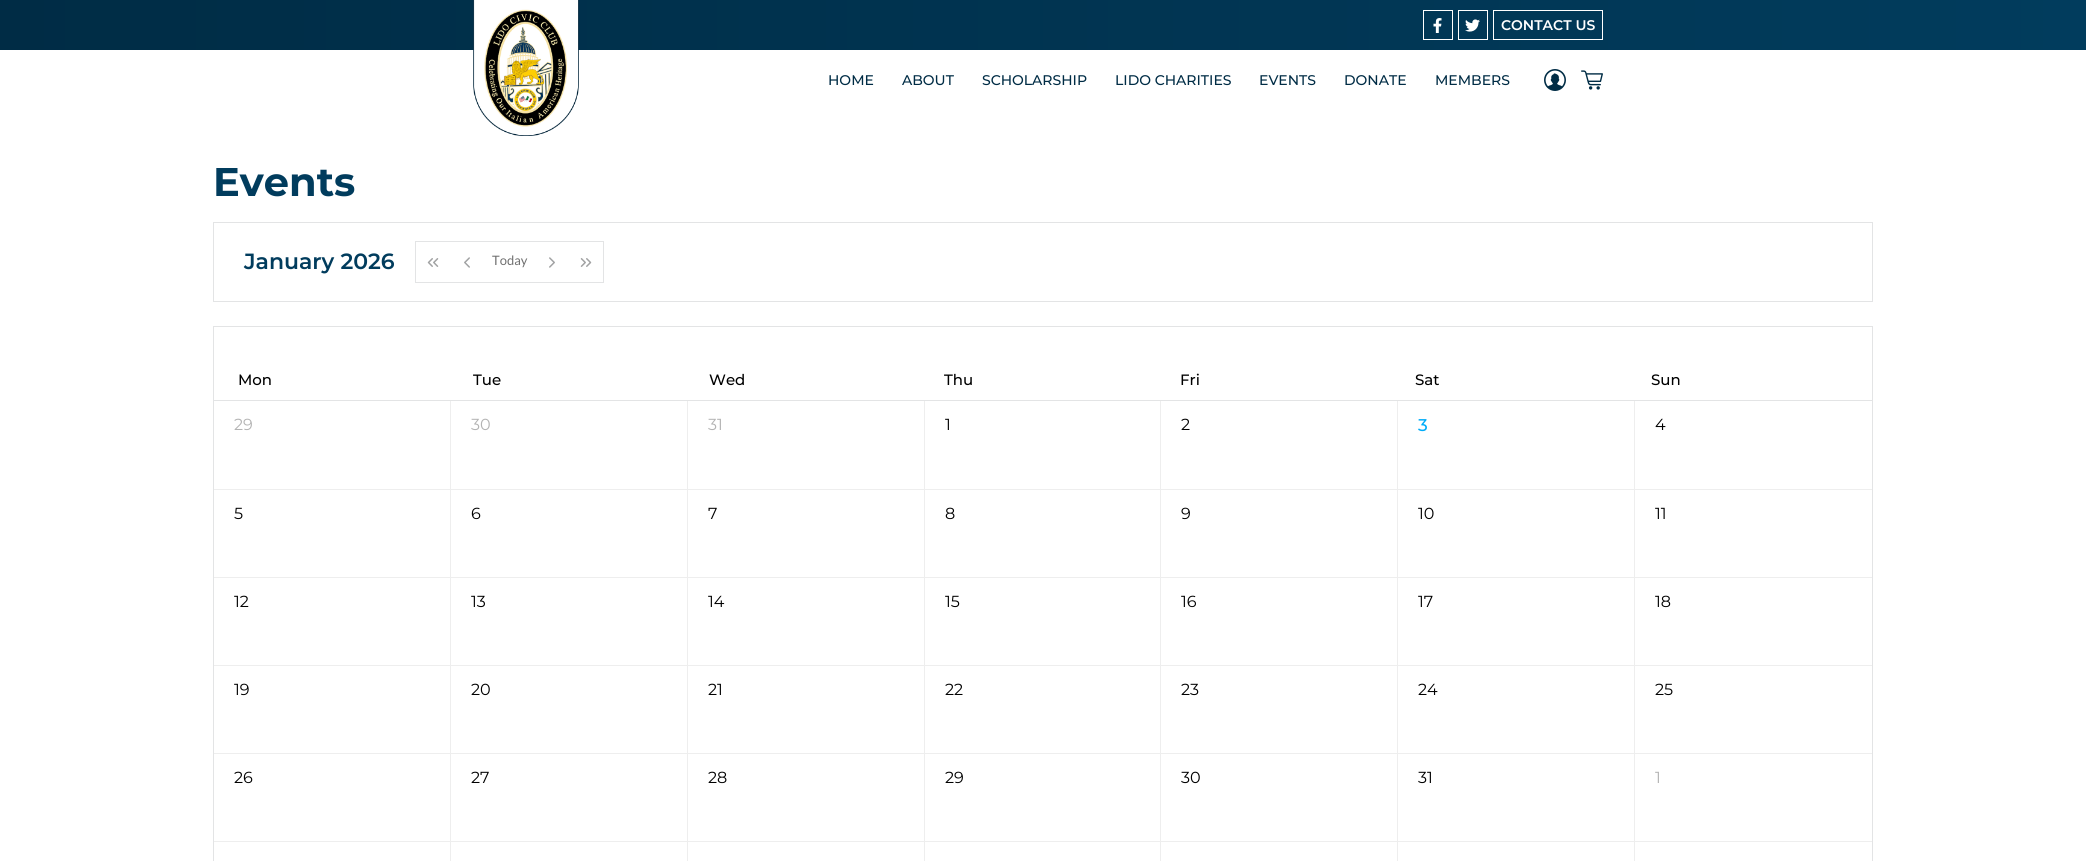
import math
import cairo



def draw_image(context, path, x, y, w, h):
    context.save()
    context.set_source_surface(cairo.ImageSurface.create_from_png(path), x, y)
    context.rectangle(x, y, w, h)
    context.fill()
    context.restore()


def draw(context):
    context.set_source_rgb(1, 1, 1)
    context.paint()
    gradient = cairo.LinearGradient(0, 25, 2086, 25)
    gradient.add_color_stop_rgba(0, 0, 44 / 255, 69 / 255, 1)
    gradient.add_color_stop_rgba(1, 1 / 255, 60 / 255, 93 / 255, 1)
    context.set_source(gradient)
    context.rectangle(0, 0, 2086, 50)
    context.fill()
    draw_image(context, "images/1.png", 473, 0, 106, 136)
    context.rectangle(1423.5, 10.5, 29, 29)
    context.set_source_rgb(1, 1, 1)
    context.set_line_width(1)
    context.stroke()
    draw_image(context, "images/2.png", 1433, 18, 9, 15)
    context.rectangle(1458.5, 10.5, 29, 29)
    context.stroke()
    draw_image(context, "images/3.png", 1465, 19, 15, 13)
    context.rectangle(1493.5, 10.5, 109, 29)
    context.stroke()
    draw_image(context, "images/4.png", 1544, 69, 22, 22)
    draw_image(context, "images/5.png", 1581, 70, 22, 20)
    context.rectangle(213.5, 222.5, 1659, 79)
    context.set_source_rgb(227 / 255, 228 / 255, 229 / 255)
    context.stroke()
    context.rectangle(415, 241, 189, 1)
    context.fill()
    context.rectangle(415, 282, 154, 1)
    context.fill()
    context.rectangle(415, 241, 1, 42)
    context.fill()
    draw_image(context, "images/6.png", 427, 258, 12, 9)
    draw_image(context, "images/7.png", 464, 257, 6, 11)
    draw_image(context, "images/8.png", 549, 257, 6, 11)
    context.rectangle(603, 241, 1, 42)
    context.fill()
    context.rectangle(569, 282, 35, 1)
    context.fill()
    draw_image(context, "images/9.png", 580, 258, 12, 9)
    context.rectangle(213.5, 326.5, 1659, 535)
    context.stroke()
    context.rectangle(214, 400, 1658, 1)
    context.fill()
    context.set_source_rgb(238 / 255, 238 / 255, 238 / 255)
    context.rectangle(450, 401, 1, 460)
    context.fill()
    context.rectangle(214, 489, 237, 1)
    context.fill()
    context.rectangle(687, 401, 1, 460)
    context.fill()
    context.rectangle(451, 489, 237, 1)
    context.fill()
    context.rectangle(924, 401, 1, 460)
    context.fill()
    context.rectangle(688, 489, 237, 1)
    context.fill()
    context.rectangle(1160, 401, 1, 460)
    context.fill()
    context.rectangle(925, 489, 236, 1)
    context.fill()
    context.rectangle(1397, 401, 1, 460)
    context.fill()
    context.rectangle(1161, 489, 237, 1)
    context.fill()
    context.rectangle(1634, 401, 1, 460)
    context.fill()
    context.rectangle(1398, 489, 474, 1)
    context.fill()
    context.rectangle(214, 577, 1658, 1)
    context.fill()
    context.rectangle(214, 665, 1658, 1)
    context.fill()
    context.rectangle(214, 753, 1658, 1)
    context.fill()
    context.rectangle(214, 841, 1658, 1)
    context.fill()
    context.select_font_face("Montserrat SemiBold")
    context.set_font_size(14)
    context.set_source_rgb(1, 1, 1)
    context.move_to(1501, 30)
    context.show_text("CONTACT US")
    context.select_font_face("Montserrat Medium")
    context.set_source_rgb(0, 44 / 255, 69 / 255)
    context.move_to(828, 85)
    context.show_text("HOME")
    context.move_to(902, 85)
    context.show_text("ABOUT")
    context.move_to(982, 85)
    context.show_text("SCHOLARSHIP")
    context.move_to(1115, 85)
    context.show_text("LIDO CHARITIES")
    context.move_to(1259, 85)
    context.show_text("EVENTS")
    context.move_to(1344, 85)
    context.show_text("DONATE")
    context.move_to(1435, 85)
    context.show_text("MEMBERS")
    context.select_font_face("Montserrat", cairo.FontSlant.NORMAL, cairo.FontWeight.BOLD)
    context.set_font_size(40)
    context.set_source_rgb(1 / 255, 60 / 255, 93 / 255)
    context.move_to(213, 196)
    context.show_text("Events")
    context.select_font_face("Montserrat SemiBold")
    context.set_font_size(22)
    context.move_to(244, 269)
    context.show_text("January 2026")
    context.select_font_face("Lato")
    context.set_font_size(13)
    context.set_source_rgb(112 / 255, 112 / 255, 112 / 255)
    context.move_to(492, 265)
    context.show_text("Today")
    context.select_font_face("Montserrat Medium")
    context.set_font_size(15)
    context.set_source_rgb(0, 0, 0)
    context.move_to(238, 385)
    context.show_text("Mon")
    context.move_to(473, 385)
    context.show_text("Tue")
    context.move_to(709, 385)
    context.show_text("Wed")
    context.move_to(944, 385)
    context.show_text("Thu")
    context.move_to(1180, 385)
    context.show_text("Fri")
    context.move_to(1415, 385)
    context.show_text("Sat")
    context.move_to(1651, 385)
    context.show_text("Sun")
    context.select_font_face("Montserrat")
    context.set_font_size(16)
    context.set_source_rgb(179 / 255, 179 / 255, 179 / 255)
    context.move_to(234, 430)
    context.show_text("29")
    context.move_to(471, 430)
    context.show_text("30")
    context.move_to(708, 430)
    context.show_text("31")
    context.set_source_rgb(0, 0, 0)
    context.move_to(945, 430)
    context.show_text("1")
    context.move_to(1181, 430)
    context.show_text("2")
    context.select_font_face("Montserrat Medium")
    context.set_font_size(17)
    context.set_source_rgb(0, 172 / 255, 248 / 255)
    context.move_to(1418, 431)
    context.show_text("3")
    context.select_font_face("Montserrat")
    context.set_font_size(16)
    context.set_source_rgb(0, 0, 0)
    context.move_to(1655, 430)
    context.show_text("4")
    context.move_to(234, 519)
    context.show_text("5")
    context.move_to(471, 519)
    context.show_text("6")
    context.move_to(708, 519)
    context.show_text("7")
    context.move_to(945, 519)
    context.show_text("8")
    context.move_to(1181, 519)
    context.show_text("9")
    context.move_to(1418, 519)
    context.show_text("10")
    context.move_to(1655, 519)
    context.show_text("11")
    context.move_to(234, 607)
    context.show_text("12")
    context.move_to(471, 607)
    context.show_text("13")
    context.move_to(708, 607)
    context.show_text("14")
    context.move_to(945, 607)
    context.show_text("15")
    context.move_to(1181, 607)
    context.show_text("16")
    context.move_to(1418, 607)
    context.show_text("17")
    context.move_to(1655, 607)
    context.show_text("18")
    context.move_to(234, 695)
    context.show_text("19")
    context.move_to(471, 695)
    context.show_text("20")
    context.move_to(708, 695)
    context.show_text("21")
    context.move_to(945, 695)
    context.show_text("22")
    context.move_to(1181, 695)
    context.show_text("23")
    context.move_to(1418, 695)
    context.show_text("24")
    context.move_to(1655, 695)
    context.show_text("25")
    context.move_to(234, 783)
    context.show_text("26")
    context.move_to(471, 783)
    context.show_text("27")
    context.move_to(708, 783)
    context.show_text("28")
    context.move_to(945, 783)
    context.show_text("29")
    context.move_to(1181, 783)
    context.show_text("30")
    context.move_to(1418, 783)
    context.show_text("31")
    context.set_source_rgb(179 / 255, 179 / 255, 179 / 255)
    context.move_to(1655, 783)
    context.show_text("1")


surface = cairo.ImageSurface(cairo.Format.RGB24, 2086, 861)
context = cairo.Context(surface)
options = cairo.FontOptions()
options.set_hint_metrics(cairo.HintMetrics.OFF)
options.set_hint_style(cairo.HintStyle.NONE)
context.set_font_options(options)
context.set_miter_limit(4)
draw(context)
surface.write_to_png("out.png")
